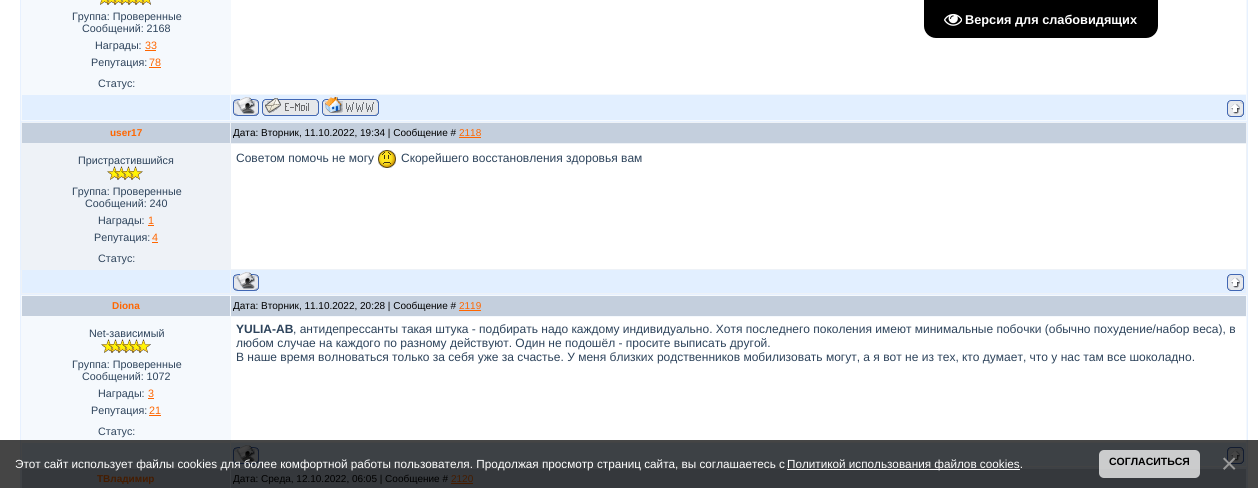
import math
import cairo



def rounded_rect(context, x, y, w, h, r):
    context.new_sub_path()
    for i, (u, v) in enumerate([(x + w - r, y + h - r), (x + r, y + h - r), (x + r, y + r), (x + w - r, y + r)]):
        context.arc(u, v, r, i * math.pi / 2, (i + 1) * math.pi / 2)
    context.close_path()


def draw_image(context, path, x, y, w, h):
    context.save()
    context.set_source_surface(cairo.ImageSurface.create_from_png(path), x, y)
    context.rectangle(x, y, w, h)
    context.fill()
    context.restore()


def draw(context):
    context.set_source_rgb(1, 1, 1)
    context.paint()
    context.set_source_rgb(69 / 255, 69 / 255, 69 / 255)
    context.rectangle(0, 440, 1258, 48)
    context.fill()
    context.set_source_rgb(231 / 255, 241 / 255, 1)
    context.rectangle(20, 0, 1228, 440)
    context.fill()
    context.set_source_rgb(62 / 255, 65 / 255, 69 / 255)
    context.rectangle(20, 440, 1228, 48)
    context.fill()
    context.set_source_rgb(245 / 255, 249 / 255, 253 / 255)
    context.rectangle(21, 0, 1226, 121)
    context.fill()
    draw_image(context, "images/1.png", 100, 0, 51, 5)
    context.set_source_rgb(1, 102 / 255, 0)
    context.rectangle(145, 50, 11, 1)
    context.fill()
    context.rectangle(149, 67, 12, 1)
    context.fill()
    context.set_source_rgb(1, 1, 1)
    context.rectangle(231, 0, 1015, 94)
    context.fill()
    context.set_source_rgb(226 / 255, 239 / 255, 1)
    context.rectangle(22, 95, 208, 25)
    context.fill()
    context.rectangle(231, 95, 1015, 25)
    context.fill()
    draw_image(context, "images/2.png", 233, 97, 26, 19)
    draw_image(context, "images/3.png", 262, 98, 57, 18)
    draw_image(context, "images/4.png", 322, 97, 57, 19)
    draw_image(context, "images/5.png", 1227, 100, 17, 17)
    context.set_source_rgb(238 / 255, 242 / 255, 247 / 255)
    context.rectangle(21, 122, 1226, 172)
    context.fill()
    context.set_source_rgb(196 / 255, 207 / 255, 221 / 255)
    context.rectangle(22, 123, 208, 20)
    context.fill()
    context.rectangle(231, 123, 1015, 20)
    context.fill()
    context.set_source_rgb(1, 102 / 255, 0)
    context.rectangle(459, 137, 22, 1)
    context.fill()
    context.rectangle(148, 225, 6, 1)
    context.fill()
    context.rectangle(152, 242, 6, 1)
    context.fill()
    context.set_source_rgb(1, 1, 1)
    context.rectangle(231, 144, 1015, 125)
    context.fill()
    draw_image(context, "images/7.png", 378, 150, 18, 18)
    context.set_source_rgb(226 / 255, 239 / 255, 1)
    context.rectangle(22, 270, 208, 23)
    context.fill()
    context.rectangle(231, 270, 1015, 23)
    context.fill()
    draw_image(context, "images/2.png", 233, 272, 26, 19)
    draw_image(context, "images/5.png", 1227, 274, 17, 17)
    context.set_source_rgb(245 / 255, 249 / 255, 253 / 255)
    context.rectangle(21, 295, 1226, 145)
    context.fill()
    context.set_source_rgb(66 / 255, 67 / 255, 68 / 255)
    context.rectangle(21, 440, 1226, 27)
    context.fill()
    context.set_source_rgb(196 / 255, 207 / 255, 221 / 255)
    context.rectangle(22, 296, 208, 20)
    context.fill()
    context.rectangle(231, 296, 1015, 20)
    context.fill()
    context.set_source_rgb(1, 102 / 255, 0)
    context.rectangle(459, 310, 22, 1)
    context.fill()
    draw_image(context, "images/8.png", 101, 339, 50, 14)
    context.rectangle(148, 398, 6, 1)
    context.fill()
    context.rectangle(149, 415, 12, 1)
    context.fill()
    context.set_source_rgb(1, 1, 1)
    context.rectangle(231, 317, 1015, 123)
    context.fill()
    context.set_source_rgb(69 / 255, 69 / 255, 69 / 255)
    context.rectangle(231, 440, 1015, 2)
    context.fill()
    context.set_source_rgb(61 / 255, 65 / 255, 69 / 255)
    context.rectangle(22, 443, 208, 23)
    context.fill()
    context.rectangle(231, 443, 1015, 23)
    context.fill()
    draw_image(context, "images/9.png", 233, 445, 26, 19)
    draw_image(context, "images/10.png", 1227, 447, 17, 17)
    context.set_source_rgb(53 / 255, 56 / 255, 60 / 255)
    context.rectangle(22, 469, 208, 19)
    context.fill()
    context.rectangle(231, 469, 1015, 19)
    context.fill()
    context.set_source_rgb(69 / 255, 28 / 255, 0)
    context.rectangle(451, 483, 22, 1)
    context.fill()
    context.set_source_rgb(0, 0, 0)
    context.new_path()
    context.move_to(924, 0)
    context.line_to(1158, 0)
    context.line_to(1158, 26)
    context.curve_to(1158, 32.5, 1152.5, 38, 1146, 38)
    context.line_to(936, 38)
    context.curve_to(929.5, 38, 924, 32.5, 924, 26)
    context.close_path()
    context.fill()
    draw_image(context, "images/11.png", 944, 13, 18, 13)
    context.set_source_rgb(1, 1, 1)
    context.rectangle(787, 469, 233, 1)
    context.fill()
    context.set_source_rgba(1, 1, 1, 0.73)
    rounded_rect(context, 1099, 450, 101, 28, 5)
    context.fill()
    context.select_font_face("Liberation Sans")
    context.set_font_size(10.75)
    context.set_source_rgb(45 / 255, 67 / 255, 91 / 255)
    context.move_to(72, 20)
    context.show_text("Группа: Проверенные")
    context.move_to(82, 32)
    context.show_text("Сообщений: 2168")
    context.move_to(95, 49)
    context.show_text("Награды:")
    context.set_source_rgb(1, 102 / 255, 0)
    context.move_to(145, 49)
    context.show_text("33")
    context.set_source_rgb(45 / 255, 67 / 255, 91 / 255)
    context.move_to(91, 66)
    context.show_text("Репутация:")
    context.set_source_rgb(1, 102 / 255, 0)
    context.move_to(149, 66)
    context.show_text("78")
    context.set_source_rgb(45 / 255, 67 / 255, 91 / 255)
    context.move_to(98, 87)
    context.show_text("Статус:")
    context.select_font_face("Liberation Sans", cairo.FontSlant.NORMAL, cairo.FontWeight.BOLD)
    context.set_font_size(10)
    context.set_source_rgb(1, 102 / 255, 0)
    context.move_to(110, 136)
    context.show_text("user17")
    context.select_font_face("Liberation Sans")
    context.set_source_rgb(0, 0, 0)
    context.move_to(233, 136)
    context.show_text("Дата: Вторник, 11.10.2022, 19:34 | Сообщение #")
    context.set_source_rgb(1, 102 / 255, 0)
    context.move_to(459, 136)
    context.show_text("2118")
    context.set_font_size(10.75)
    context.set_source_rgb(45 / 255, 67 / 255, 91 / 255)
    context.move_to(78, 164)
    context.show_text("Пристрастившийся")
    draw_image(context, "images/6.png", 107, 166, 36, 14)
    context.move_to(72, 195)
    context.show_text("Группа: Проверенные")
    context.move_to(85, 207)
    context.show_text("Сообщений: 240")
    context.move_to(98, 224)
    context.show_text("Награды:")
    context.set_source_rgb(1, 102 / 255, 0)
    context.move_to(148, 224)
    context.show_text("1")
    context.set_source_rgb(45 / 255, 67 / 255, 91 / 255)
    context.move_to(94, 241)
    context.show_text("Репутация:")
    context.set_source_rgb(1, 102 / 255, 0)
    context.move_to(152, 241)
    context.show_text("4")
    context.set_source_rgb(45 / 255, 67 / 255, 91 / 255)
    context.move_to(98, 262)
    context.show_text("Статус:")
    context.set_font_size(12)
    context.move_to(236, 162)
    context.show_text("Советом помочь не могу")
    context.move_to(401, 162)
    context.show_text("Скорейшего восстановления здоровья вам")
    context.select_font_face("Liberation Sans", cairo.FontSlant.NORMAL, cairo.FontWeight.BOLD)
    context.set_font_size(10)
    context.set_source_rgb(1, 102 / 255, 0)
    context.move_to(112, 309)
    context.show_text("Diona")
    context.select_font_face("Liberation Sans")
    context.set_source_rgb(0, 0, 0)
    context.move_to(233, 309)
    context.show_text("Дата: Вторник, 11.10.2022, 20:28 | Сообщение #")
    context.set_source_rgb(1, 102 / 255, 0)
    context.move_to(459, 309)
    context.show_text("2119")
    context.set_font_size(10.75)
    context.set_source_rgb(45 / 255, 67 / 255, 91 / 255)
    context.move_to(89, 337)
    context.show_text("Net-зависимый")
    context.move_to(72, 368)
    context.show_text("Группа: Проверенные")
    context.move_to(82, 380)
    context.show_text("Сообщений: 1072")
    context.move_to(98, 397)
    context.show_text("Награды:")
    context.set_source_rgb(1, 102 / 255, 0)
    context.move_to(148, 397)
    context.show_text("3")
    context.set_source_rgb(45 / 255, 67 / 255, 91 / 255)
    context.move_to(91, 414)
    context.show_text("Репутация:")
    context.set_source_rgb(1, 102 / 255, 0)
    context.move_to(149, 414)
    context.show_text("21")
    context.set_source_rgb(45 / 255, 67 / 255, 91 / 255)
    context.move_to(98, 435)
    context.show_text("Статус:")
    context.select_font_face("Liberation Sans", cairo.FontSlant.NORMAL, cairo.FontWeight.BOLD)
    context.set_font_size(12)
    context.move_to(236, 333)
    context.show_text("YULIA-AB")
    context.select_font_face("Liberation Sans")
    context.move_to(293, 333)
    context.show_text(", антидепрессанты такая штука - подбирать надо каждому индивидуально. Хотя последнего поколения имеют минимальные побочки (обычно похудение/набор веса), в")
    context.move_to(236, 347)
    context.show_text("любом случае на каждого по разному действуют. Один не подошёл - просите выписать другой.")
    context.move_to(236, 361)
    context.show_text("В наше время волноваться только за себя уже за счастье. У меня близких родственников мобилизовать могут, а я вот не из тех, кто думает, что у нас там все шоколадно.")
    context.select_font_face("Liberation Sans", cairo.FontSlant.NORMAL, cairo.FontWeight.BOLD)
    context.set_font_size(10)
    context.set_source_rgb(69 / 255, 28 / 255, 0)
    context.move_to(97, 482)
    context.show_text("ТВладимир")
    context.select_font_face("Liberation Sans")
    context.set_source_rgb(0, 0, 0)
    context.move_to(233, 482)
    context.show_text("Дата: Среда, 12.10.2022, 06:05 | Сообщение #")
    context.set_source_rgb(69 / 255, 28 / 255, 0)
    context.move_to(451, 482)
    context.show_text("2120")
    context.select_font_face("Liberation Sans", cairo.FontSlant.NORMAL, cairo.FontWeight.BOLD)
    context.set_font_size(12.75)
    context.set_source_rgb(1, 1, 1)
    context.move_to(965, 24)
    context.show_text("Версия для слабовидящих")
    context.select_font_face("Liberation Sans")
    context.set_font_size(11.73)
    context.move_to(15, 468)
    context.show_text("Этот сайт использует файлы cookies для более комфортной работы пользователя. Продолжая просмотр страниц сайта, вы соглашаетесь с")
    context.move_to(787, 468)
    context.show_text("Политикой использования файлов cookies.")
    context.select_font_face("Liberation Sans", cairo.FontSlant.NORMAL, cairo.FontWeight.BOLD)
    context.set_font_size(10.5)
    context.set_source_rgb(0, 0, 0)
    context.move_to(1109, 465)
    context.show_text("СОГЛАСИТЬСЯ")
    context.select_font_face("Liberation Sans")
    context.set_font_size(28)
    context.set_source_rgb(153 / 255, 153 / 255, 153 / 255)
    context.move_to(1221, 473)
    context.show_text("×")


surface = cairo.ImageSurface(cairo.Format.RGB24, 1258, 488)
context = cairo.Context(surface)
options = cairo.FontOptions()
options.set_hint_metrics(cairo.HintMetrics.OFF)
options.set_hint_style(cairo.HintStyle.NONE)
context.set_font_options(options)
context.set_miter_limit(4)
draw(context)
surface.write_to_png("out.png")
